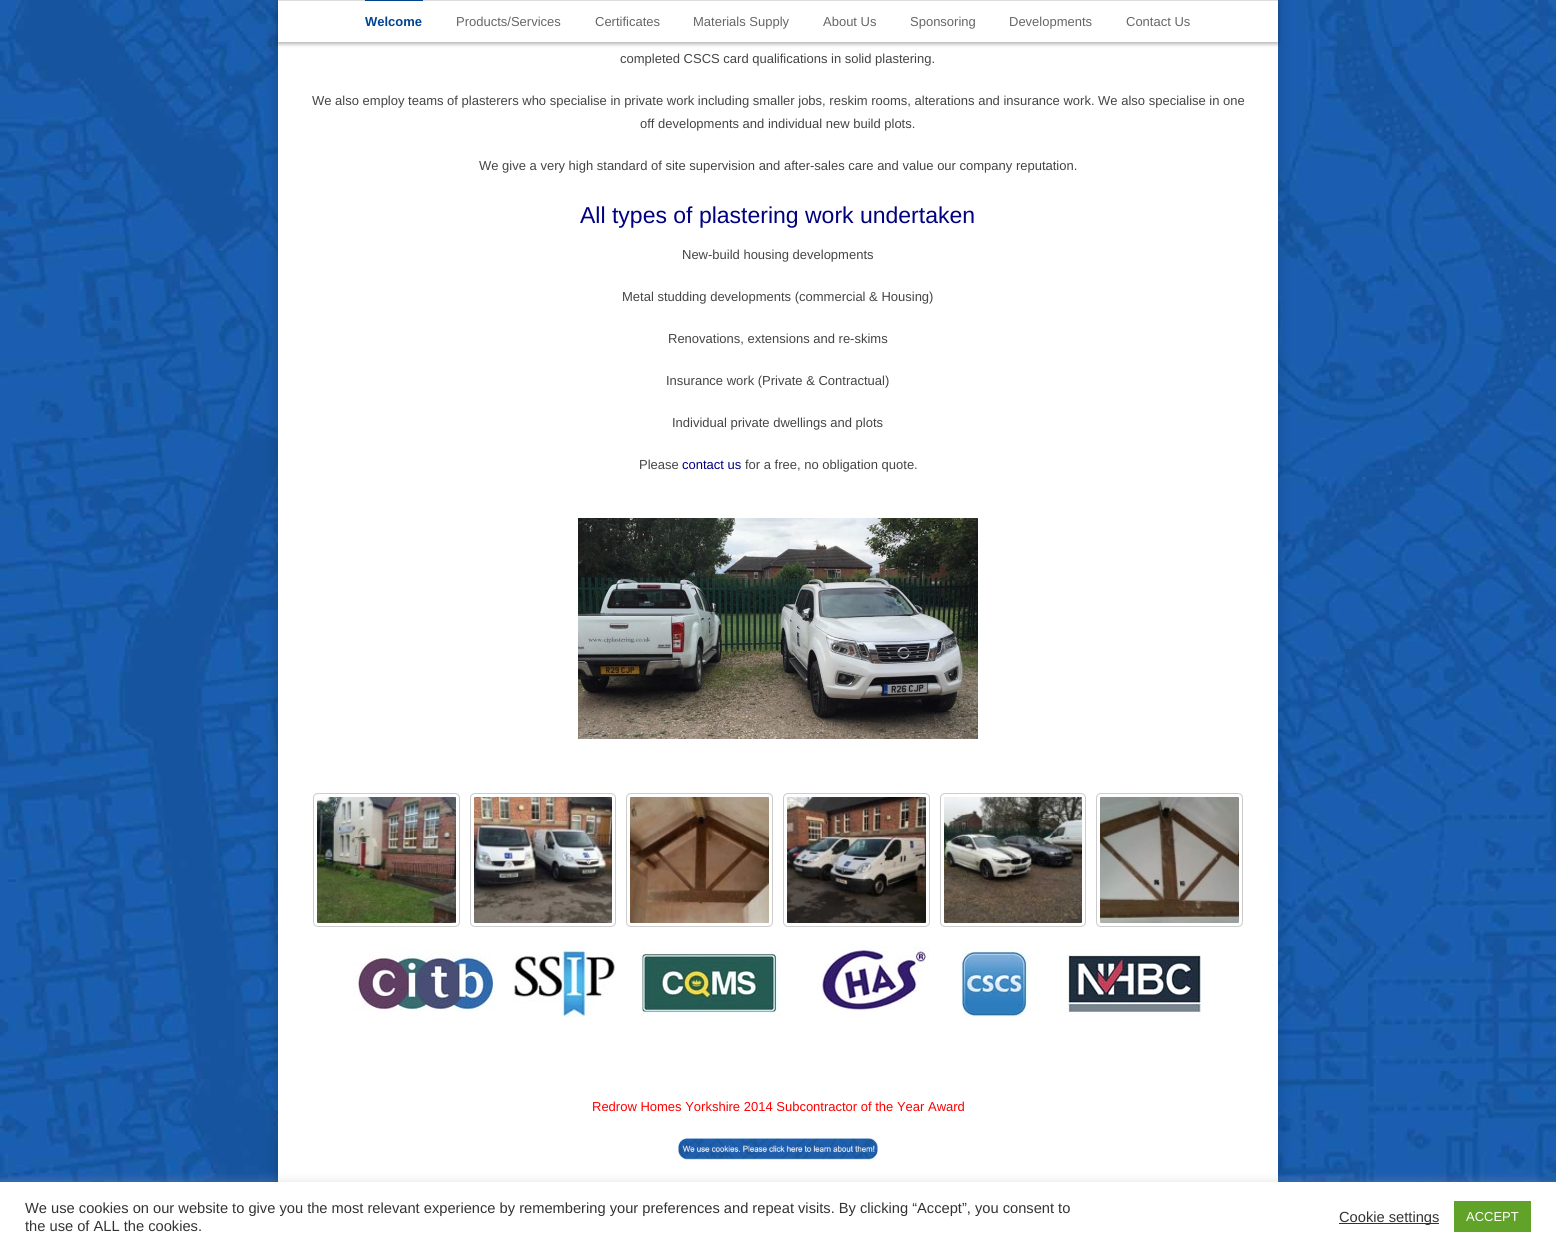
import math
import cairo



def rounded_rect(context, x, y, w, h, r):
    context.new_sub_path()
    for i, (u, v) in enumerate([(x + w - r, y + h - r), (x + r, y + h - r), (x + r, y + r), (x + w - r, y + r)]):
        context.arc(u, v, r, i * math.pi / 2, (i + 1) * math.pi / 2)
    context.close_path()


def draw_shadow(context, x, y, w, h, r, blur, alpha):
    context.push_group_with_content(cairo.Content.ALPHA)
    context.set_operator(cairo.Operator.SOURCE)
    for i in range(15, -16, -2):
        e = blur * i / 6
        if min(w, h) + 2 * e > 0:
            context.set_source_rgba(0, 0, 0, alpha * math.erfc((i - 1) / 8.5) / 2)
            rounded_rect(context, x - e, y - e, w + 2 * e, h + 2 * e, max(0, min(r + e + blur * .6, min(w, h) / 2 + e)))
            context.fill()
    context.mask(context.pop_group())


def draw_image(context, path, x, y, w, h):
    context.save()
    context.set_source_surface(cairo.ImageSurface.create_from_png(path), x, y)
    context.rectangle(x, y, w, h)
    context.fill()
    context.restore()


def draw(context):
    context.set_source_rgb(1, 1, 1)
    context.paint()
    draw_image(context, "images/1.png", 0, 0, 1556, 1182)
    context.set_source_rgb(0, 0, 0)
    draw_shadow(context, 278, -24, 1000, 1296, 0, 8, 0.16)
    context.set_source_rgb(1, 1, 1)
    context.rectangle(278, 42, 1000, 1140)
    context.fill()
    context.set_source_rgb(0, 0, 0)
    draw_shadow(context, 278, 2, 1000, 42, 0, 2, 0.3)
    context.set_source_rgb(1, 1, 1)
    context.rectangle(278, 1, 1000, 41)
    context.fill()
    context.set_source_rgb(221 / 255, 221 / 255, 221 / 255)
    context.rectangle(278, 0, 1000, 1)
    context.fill()
    context.set_source_rgb(0, 67 / 255, 145 / 255)
    context.rectangle(365, 0, 58, 1)
    context.fill()
    draw_image(context, "images/2.png", 578, 518, 400, 221)
    rounded_rect(context, 313.5, 793.5, 146, 133, 4.5)
    context.set_source_rgb(204 / 255, 204 / 255, 204 / 255)
    context.set_line_width(1)
    context.stroke()
    draw_image(context, "images/3.png", 317, 797, 139, 126)
    rounded_rect(context, 470.5, 793.5, 145, 133, 4.5)
    context.stroke()
    draw_image(context, "images/4.png", 474, 797, 138, 126)
    rounded_rect(context, 626.5, 793.5, 146, 133, 4.5)
    context.stroke()
    draw_image(context, "images/5.png", 630, 797, 139, 126)
    rounded_rect(context, 783.5, 793.5, 146, 133, 4.5)
    context.stroke()
    draw_image(context, "images/6.png", 787, 797, 139, 126)
    rounded_rect(context, 940.5, 793.5, 145, 133, 4.5)
    context.stroke()
    draw_image(context, "images/7.png", 944, 797, 138, 126)
    rounded_rect(context, 1096.5, 793.5, 146, 133, 4.5)
    context.stroke()
    draw_image(context, "images/8.png", 1100, 797, 139, 126)
    draw_image(context, "images/9.png", 353, 947, 848, 70)
    draw_image(context, "images/10.png", 678, 1138, 200, 22)
    context.set_source_rgb(172 / 255, 171 / 255, 171 / 255)
    draw_shadow(context, 0, 1181, 1556, 69, 0, 5, 0.3)
    context.set_source_rgb(1, 1, 1)
    context.rectangle(0, 1182, 1556, 69)
    context.fill()
    context.set_source_rgb(51 / 255, 51 / 255, 51 / 255)
    context.rectangle(1339, 1223, 100, 1)
    context.fill()
    context.set_source_rgb(97 / 255, 162 / 255, 41 / 255)
    context.rectangle(1454, 1201, 77, 31)
    context.fill()
    context.select_font_face("Liberation Sans", cairo.FontSlant.NORMAL, cairo.FontWeight.BOLD)
    context.set_font_size(13)
    context.set_source_rgb(0, 67 / 255, 145 / 255)
    context.move_to(365, 26)
    context.show_text("Welcome")
    context.select_font_face("Liberation Sans")
    context.set_source_rgb(102 / 255, 102 / 255, 102 / 255)
    context.move_to(456, 26)
    context.show_text("Products/Services")
    context.move_to(595, 26)
    context.show_text("Certificates")
    context.move_to(693, 26)
    context.show_text("Materials Supply")
    context.move_to(823, 26)
    context.show_text("About Us")
    context.move_to(910, 26)
    context.show_text("Sponsoring")
    context.move_to(1009, 26)
    context.show_text("Developments")
    context.move_to(1126, 26)
    context.show_text("Contact Us")
    context.set_source_rgb(68 / 255, 68 / 255, 68 / 255)
    context.move_to(620, 63)
    context.show_text("completed CSCS card qualifications in solid plastering.")
    context.move_to(312, 105)
    context.show_text("We also employ teams of plasterers who specialise in private work including smaller jobs, reskim rooms, alterations and insurance work. We also specialise in one")
    context.move_to(640, 128)
    context.show_text("off developments and individual new build plots.")
    context.move_to(479, 170)
    context.show_text("We give a very high standard of site supervision and after-sales care and value our company reputation.")
    context.set_font_size(23)
    context.set_source_rgb(0, 0, 128 / 255)
    context.move_to(580, 223)
    context.show_text("All types of plastering work undertaken")
    context.set_font_size(13)
    context.set_source_rgb(68 / 255, 68 / 255, 68 / 255)
    context.move_to(682, 259)
    context.show_text("New-build housing developments")
    context.move_to(622, 301)
    context.show_text("Metal studding developments (commercial & Housing)")
    context.move_to(668, 343)
    context.show_text("Renovations, extensions and re-skims")
    context.move_to(666, 385)
    context.show_text("Insurance work (Private & Contractual)")
    context.move_to(672, 427)
    context.show_text("Individual private dwellings and plots")
    context.move_to(639, 469)
    context.show_text("Please")
    context.set_source_rgb(0, 0, 128 / 255)
    context.move_to(682, 469)
    context.show_text("contact us")
    context.set_source_rgb(68 / 255, 68 / 255, 68 / 255)
    context.move_to(745, 469)
    context.show_text("for a free, no obligation quote.")
    context.set_source_rgb(1, 0, 0)
    context.move_to(592, 1111)
    context.show_text("Redrow Homes Yorkshire 2014 Subcontractor of the Year Award")
    context.set_font_size(14.67)
    context.set_source_rgb(51 / 255, 51 / 255, 51 / 255)
    context.move_to(25, 1213)
    context.show_text("We use cookies on our website to give you the most relevant experience by remembering your preferences and repeat visits. By clicking “Accept”, you consent to")
    context.move_to(25, 1231)
    context.show_text("the use of ALL the cookies.")
    context.move_to(1339, 1222)
    context.show_text("Cookie settings")
    context.set_font_size(13)
    context.set_source_rgb(1, 1, 1)
    context.move_to(1466, 1221)
    context.show_text("ACCEPT")


surface = cairo.ImageSurface(cairo.Format.RGB24, 1556, 1251)
context = cairo.Context(surface)
options = cairo.FontOptions()
options.set_hint_metrics(cairo.HintMetrics.OFF)
options.set_hint_style(cairo.HintStyle.NONE)
context.set_font_options(options)
context.set_miter_limit(4)
draw(context)
surface.write_to_png("out.png")
